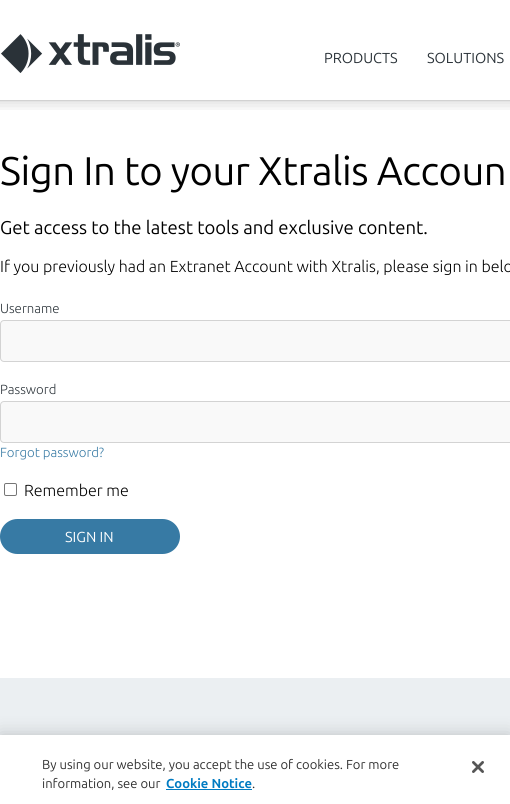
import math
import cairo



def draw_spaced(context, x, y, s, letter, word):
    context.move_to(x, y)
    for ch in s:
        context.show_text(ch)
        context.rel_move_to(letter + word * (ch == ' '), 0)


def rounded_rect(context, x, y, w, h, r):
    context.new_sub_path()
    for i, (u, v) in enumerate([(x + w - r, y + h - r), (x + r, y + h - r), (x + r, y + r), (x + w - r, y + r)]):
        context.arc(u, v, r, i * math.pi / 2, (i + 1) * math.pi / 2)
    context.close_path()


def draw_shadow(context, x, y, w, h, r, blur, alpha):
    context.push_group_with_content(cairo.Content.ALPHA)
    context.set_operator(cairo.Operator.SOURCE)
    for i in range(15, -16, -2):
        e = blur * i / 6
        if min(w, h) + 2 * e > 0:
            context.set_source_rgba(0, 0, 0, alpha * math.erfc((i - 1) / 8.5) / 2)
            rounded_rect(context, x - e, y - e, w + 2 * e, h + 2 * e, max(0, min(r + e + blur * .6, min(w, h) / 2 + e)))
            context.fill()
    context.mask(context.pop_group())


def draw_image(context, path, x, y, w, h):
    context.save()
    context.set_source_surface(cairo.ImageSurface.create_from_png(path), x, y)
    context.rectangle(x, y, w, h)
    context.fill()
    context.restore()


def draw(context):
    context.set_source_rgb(1, 1, 1)
    context.paint()
    draw_image(context, "images/1.png", 1, 34, 179, 39)
    draw_image(context, "images/2.png", 0, 100, 510, 10)
    context.set_source_rgb(249 / 255, 249 / 255, 249 / 255)
    rounded_rect(context, 0.5, 320.5, 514, 41, 3.5)
    context.fill_preserve()
    context.set_source_rgb(211 / 255, 211 / 255, 211 / 255)
    context.set_line_width(1)
    context.stroke()
    context.set_source_rgb(249 / 255, 249 / 255, 249 / 255)
    rounded_rect(context, 0.5, 401.5, 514, 41, 3.5)
    context.fill_preserve()
    context.set_source_rgb(211 / 255, 211 / 255, 211 / 255)
    context.stroke()
    rounded_rect(context, 4.5, 483.5, 12, 12, 1.5)
    context.set_source_rgb(118 / 255, 118 / 255, 118 / 255)
    context.stroke()
    context.set_source_rgb(55 / 255, 122 / 255, 164 / 255)
    rounded_rect(context, 1, 520, 178, 33, 16.5)
    context.fill_preserve()
    context.set_line_width(2)
    context.stroke()
    context.set_source_rgb(235 / 255, 239 / 255, 242 / 255)
    context.rectangle(0, 678, 510, 57)
    context.fill()
    context.set_source_rgb(0, 0, 0)
    draw_shadow(context, 0, 735, 510, 69, 0, 9, 0.2)
    context.set_source_rgb(1, 1, 1)
    context.rectangle(0, 735, 510, 69)
    context.fill()
    context.set_source_rgb(0, 123 / 255, 194 / 255)
    context.rectangle(166, 789, 86, 1)
    context.fill()
    draw_image(context, "images/3.png", 472, 761, 12, 12)
    context.select_font_face("Ubuntu")
    context.set_font_size(14.5)
    context.set_source_rgb(42 / 255, 50 / 255, 56 / 255)
    context.move_to(324, 63)
    context.show_text("PRODUCTS")
    context.move_to(427, 63)
    context.show_text("SOLUTIONS")
    context.set_font_size(40)
    context.set_source_rgb(0, 0, 0)
    draw_spaced(context, 0, 185, "Sign In to your Xtralis Accoun", -0.5, 0)
    context.set_font_size(18.5)
    context.move_to(0, 234)
    context.show_text("Get access to the latest tools and exclusive content.")
    context.select_font_face("Ubuntu Light")
    context.set_font_size(16)
    context.move_to(0, 272)
    context.show_text("If you previously had an Extranet Account with Xtralis, please sign in belo")
    context.set_font_size(13.25)
    context.set_source_rgb(42 / 255, 50 / 255, 56 / 255)
    context.move_to(0, 313)
    context.show_text("Username")
    context.move_to(0, 394)
    context.show_text("Password")
    context.set_source_rgb(55 / 255, 122 / 255, 164 / 255)
    context.move_to(0, 457)
    context.show_text("Forgot password?")
    context.set_font_size(16)
    context.set_source_rgb(0, 0, 0)
    context.move_to(24, 496)
    context.show_text("Remember me")
    context.select_font_face("Ubuntu")
    context.set_font_size(14.5)
    context.set_source_rgb(1, 1, 1)
    context.move_to(65, 542)
    context.show_text("SIGN IN")
    context.set_font_size(13)
    context.set_source_rgb(48 / 255, 48 / 255, 48 / 255)
    context.move_to(42, 769)
    context.show_text("By using our website, you accept the use of cookies. For more")
    context.move_to(42, 788)
    context.show_text("information, see our")
    context.select_font_face("Ubuntu", cairo.FontSlant.NORMAL, cairo.FontWeight.BOLD)
    context.set_source_rgb(0, 123 / 255, 194 / 255)
    context.move_to(166, 788)
    context.show_text("Cookie Notice")
    context.select_font_face("Ubuntu")
    context.set_source_rgb(48 / 255, 48 / 255, 48 / 255)
    context.move_to(252, 788)
    context.show_text(".")


surface = cairo.ImageSurface(cairo.Format.RGB24, 510, 804)
context = cairo.Context(surface)
options = cairo.FontOptions()
options.set_hint_metrics(cairo.HintMetrics.OFF)
options.set_hint_style(cairo.HintStyle.NONE)
context.set_font_options(options)
context.set_miter_limit(4)
draw(context)
surface.write_to_png("out.png")
